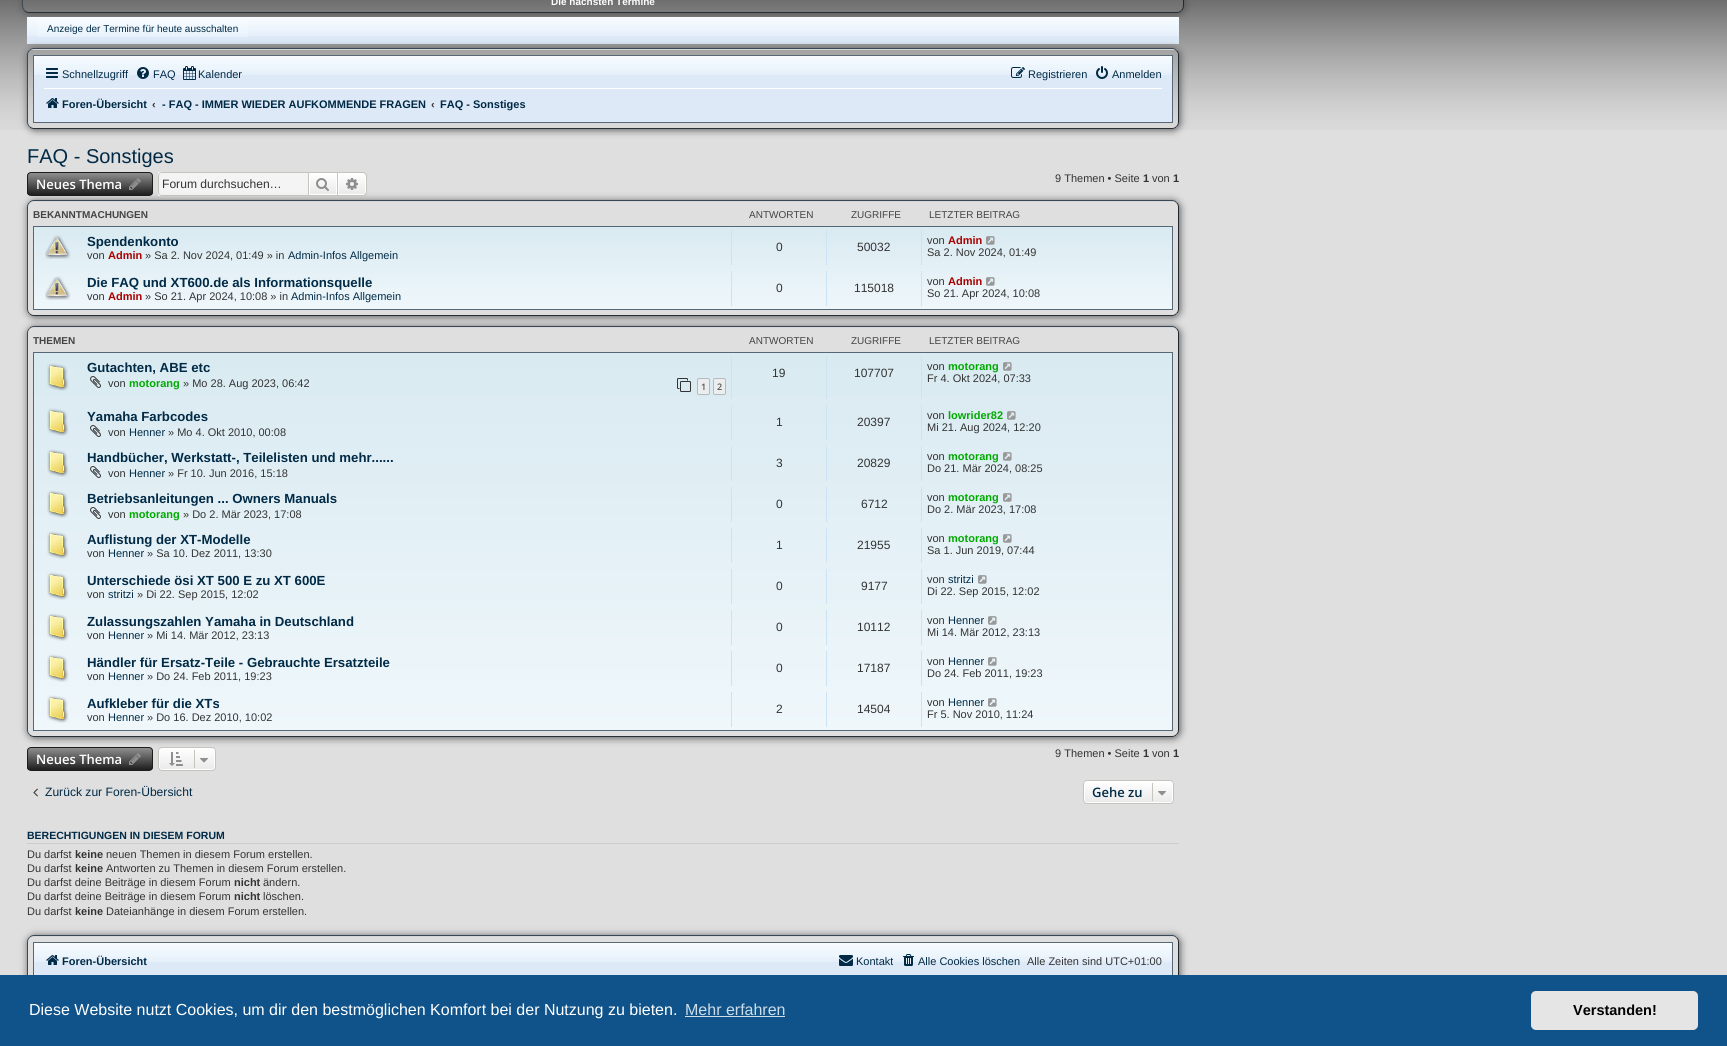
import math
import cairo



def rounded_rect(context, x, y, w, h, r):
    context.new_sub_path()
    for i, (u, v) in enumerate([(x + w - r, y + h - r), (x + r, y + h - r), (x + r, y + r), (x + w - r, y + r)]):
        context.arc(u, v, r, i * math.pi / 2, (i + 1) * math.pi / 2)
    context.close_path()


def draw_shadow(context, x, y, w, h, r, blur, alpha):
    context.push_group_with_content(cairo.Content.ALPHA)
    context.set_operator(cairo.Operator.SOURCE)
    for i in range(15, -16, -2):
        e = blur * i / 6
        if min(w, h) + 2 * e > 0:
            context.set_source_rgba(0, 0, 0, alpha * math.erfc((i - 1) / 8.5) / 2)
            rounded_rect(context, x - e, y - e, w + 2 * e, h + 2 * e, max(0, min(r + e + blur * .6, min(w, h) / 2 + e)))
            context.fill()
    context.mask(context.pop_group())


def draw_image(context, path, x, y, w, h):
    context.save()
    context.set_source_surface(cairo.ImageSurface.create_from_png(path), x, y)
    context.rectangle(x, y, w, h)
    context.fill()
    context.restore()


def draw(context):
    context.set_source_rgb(223 / 255, 223 / 255, 223 / 255)
    context.paint()
    draw_image(context, "images/1.png", 0, 0, 1727, 130)
    context.save()
    context.set_fill_rule(cairo.FillRule.EVEN_ODD)
    context.new_path()
    context.move_to(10, 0)
    context.line_to(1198, 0)
    context.line_to(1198, 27)
    context.line_to(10, 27)
    context.close_path()
    context.move_to(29, -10)
    context.line_to(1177, -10)
    context.curve_to(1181, -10, 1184, -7, 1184, -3)
    context.line_to(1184, 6)
    context.curve_to(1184, 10, 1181, 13, 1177, 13)
    context.line_to(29, 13)
    context.curve_to(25, 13, 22, 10, 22, 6)
    context.line_to(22, -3)
    context.curve_to(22, -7, 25, -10, 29, -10)
    context.close_path()
    context.clip()
    context.set_source_rgb(85 / 255, 85 / 255, 85 / 255)
    draw_shadow(context, 23, -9, 1162, 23, 7, 4, 1)
    context.restore()
    context.new_path()
    context.move_to(1181.5, -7.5)
    context.curve_to(1184, -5, 1183.5, -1.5, 1183.5, 1.5)
    context.curve_to(1183.5, 4.5, 1184, 8, 1181.5, 10.5)
    context.set_source_rgb(33 / 255, 41 / 255, 48 / 255)
    context.set_line_width(1)
    context.stroke()
    context.new_path()
    context.move_to(1181.5, 10.5)
    context.curve_to(1180.5, 12, 1178.5, 12.5, 1177, 12.5)
    context.line_to(29, 12.5)
    context.curve_to(27.5, 12.5, 25.5, 12, 24.5, 10.5)
    context.set_source_rgb(38 / 255, 48 / 255, 56 / 255)
    context.stroke()
    context.new_path()
    context.move_to(24.5, 10.5)
    context.curve_to(22, 8, 22.5, 4.5, 22.5, 1.5)
    context.curve_to(22.5, -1.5, 22, -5, 24.5, -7.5)
    context.set_source_rgb(58 / 255, 73 / 255, 85 / 255)
    context.stroke()
    context.set_source_rgb(221 / 255, 233 / 255, 247 / 255)
    context.rectangle(27, 36, 1152, 8)
    context.fill()
    draw_image(context, "images/2.png", 27, 17, 1152, 19)
    context.save()
    context.set_fill_rule(cairo.FillRule.EVEN_ODD)
    context.new_path()
    context.move_to(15, 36)
    context.line_to(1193, 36)
    context.line_to(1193, 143)
    context.line_to(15, 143)
    context.close_path()
    context.move_to(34, 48)
    context.line_to(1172, 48)
    context.curve_to(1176, 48, 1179, 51, 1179, 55)
    context.line_to(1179, 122)
    context.curve_to(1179, 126, 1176, 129, 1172, 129)
    context.line_to(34, 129)
    context.curve_to(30, 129, 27, 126, 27, 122)
    context.line_to(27, 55)
    context.curve_to(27, 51, 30, 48, 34, 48)
    context.close_path()
    context.clip()
    context.set_source_rgb(85 / 255, 85 / 255, 85 / 255)
    draw_shadow(context, 28, 49, 1152, 81, 7, 4, 1)
    context.restore()
    draw_image(context, "images/3.png", 37, 20, 211, 17)
    draw_image(context, "images/4.png", 29, 49, 1148, 1)
    context.new_path()
    context.move_to(29.5, 50.5)
    context.curve_to(30.5, 49, 32.5, 48.5, 34, 48.5)
    context.line_to(1172, 48.5)
    context.curve_to(1173.5, 48.5, 1175.5, 49, 1176.5, 50.5)
    context.set_source_rgb(57 / 255, 72 / 255, 84 / 255)
    context.stroke()
    context.new_path()
    context.move_to(1176.5, 50.5)
    context.curve_to(1178, 51.5, 1178.5, 53.5, 1178.5, 55)
    context.line_to(1178.5, 122)
    context.curve_to(1178.5, 123.5, 1178, 125.5, 1176.5, 126.5)
    context.set_source_rgb(33 / 255, 41 / 255, 48 / 255)
    context.stroke()
    context.new_path()
    context.move_to(1176.5, 126.5)
    context.curve_to(1175.5, 128, 1173.5, 128.5, 1172, 128.5)
    context.line_to(34, 128.5)
    context.curve_to(32.5, 128.5, 30.5, 128, 29.5, 126.5)
    context.set_source_rgb(38 / 255, 48 / 255, 56 / 255)
    context.stroke()
    context.new_path()
    context.move_to(29.5, 126.5)
    context.curve_to(28, 125.5, 27.5, 123.5, 27.5, 122)
    context.line_to(27.5, 55)
    context.curve_to(27.5, 53.5, 28, 51.5, 29.5, 50.5)
    context.set_source_rgb(58 / 255, 73 / 255, 85 / 255)
    context.stroke()
    context.rectangle(33.5, 55.5, 1139, 67)
    context.set_source_rgb(86 / 255, 104 / 255, 119 / 255)
    context.stroke()
    context.set_source_rgb(221 / 255, 233 / 255, 247 / 255)
    context.rectangle(34, 75, 1138, 47)
    context.fill()
    draw_image(context, "images/5.png", 34, 56, 1138, 19)
    draw_image(context, "images/6.png", 46, 68, 12, 10)
    draw_image(context, "images/7.png", 137, 67, 12, 12)
    draw_image(context, "images/8.png", 183, 66, 13, 14)
    draw_image(context, "images/9.png", 1011, 67, 14, 11)
    draw_image(context, "images/10.png", 1096, 66, 12, 13)
    context.set_source_rgb(1, 1, 1)
    context.rectangle(44, 88, 1118, 1)
    context.fill()
    draw_image(context, "images/11.png", 46, 98, 13, 10)
    context.save()
    context.set_fill_rule(cairo.FillRule.EVEN_ODD)
    context.new_path()
    context.move_to(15, 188)
    context.line_to(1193, 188)
    context.line_to(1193, 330)
    context.line_to(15, 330)
    context.close_path()
    context.move_to(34, 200)
    context.line_to(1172, 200)
    context.curve_to(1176, 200, 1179, 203, 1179, 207)
    context.line_to(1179, 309)
    context.curve_to(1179, 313, 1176, 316, 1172, 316)
    context.line_to(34, 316)
    context.curve_to(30, 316, 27, 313, 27, 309)
    context.line_to(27, 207)
    context.curve_to(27, 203, 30, 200, 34, 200)
    context.close_path()
    context.clip()
    context.set_source_rgb(85 / 255, 85 / 255, 85 / 255)
    draw_shadow(context, 28, 201, 1152, 116, 7, 4, 1)
    context.restore()
    context.save()
    rounded_rect(context, 27, 172, 126, 24, 4)
    context.clip()
    gradient = cairo.LinearGradient(90, 173, 90, 195)
    gradient.add_color_stop_rgba(0, 143 / 255, 143 / 255, 143 / 255, 1)
    gradient.add_color_stop_rgba(1, 29 / 255, 29 / 255, 29 / 255, 1)
    context.set_source(gradient)
    context.rectangle(27, 173, 126, 22)
    context.fill()
    context.restore()
    rounded_rect(context, 27.5, 172.5, 125, 23, 3.5)
    context.set_source_rgb(29 / 255, 29 / 255, 29 / 255)
    context.stroke()
    draw_image(context, "images/12.png", 129, 178, 12, 12)
    context.set_source_rgba(1, 1, 1, 0.65)
    context.rectangle(158, 172, 150, 24)
    context.fill()
    context.set_source_rgb(199 / 255, 195 / 255, 191 / 255)
    context.set_fill_rule(cairo.FillRule.EVEN_ODD)
    context.new_path()
    context.move_to(162, 172)
    context.line_to(308, 172)
    context.line_to(308, 196)
    context.line_to(162, 196)
    context.curve_to(160, 196, 158, 194, 158, 192)
    context.line_to(158, 176)
    context.curve_to(158, 174, 160, 172, 162, 172)
    context.close_path()
    context.move_to(162, 173)
    context.line_to(308, 173)
    context.line_to(308, 195)
    context.line_to(162, 195)
    context.curve_to(160, 195, 159, 194, 159, 192)
    context.line_to(159, 176)
    context.curve_to(159, 174, 160, 173, 162, 173)
    context.close_path()
    context.fill()
    gradient = cairo.LinearGradient(323, 173, 323, 195)
    gradient.add_color_stop_rgba(0, 1, 1, 1, 1)
    gradient.add_color_stop_rgba(1, 233 / 255, 233 / 255, 233 / 255, 1)
    context.set_source(gradient)
    context.rectangle(310, 174, 26, 20)
    context.fill()
    context.rectangle(309.5, 173.5, 27, 21)
    context.set_source_rgb(1, 1, 1)
    context.stroke()
    context.rectangle(308.5, 172.5, 29, 23)
    context.set_source_rgb(199 / 255, 195 / 255, 191 / 255)
    context.stroke()
    draw_image(context, "images/13.png", 316, 178, 13, 13)
    gradient = cairo.LinearGradient(352, 173, 352, 195)
    gradient.add_color_stop_rgba(0, 1, 1, 1, 1)
    gradient.add_color_stop_rgba(1, 233 / 255, 233 / 255, 233 / 255, 1)
    context.set_source(gradient)
    context.new_path()
    context.move_to(338.5, 173.5)
    context.line_to(363, 173.5)
    context.curve_to(364.5, 173.5, 365.5, 174.5, 365.5, 176)
    context.line_to(365.5, 192)
    context.curve_to(365.5, 193.5, 364.5, 194.5, 363, 194.5)
    context.line_to(338.5, 194.5)
    context.close_path()
    context.fill_preserve()
    context.set_source_rgb(1, 1, 1)
    context.stroke()
    context.set_source_rgb(199 / 255, 195 / 255, 191 / 255)
    context.new_path()
    context.move_to(338, 172)
    context.line_to(363, 172)
    context.curve_to(365, 172, 367, 174, 367, 176)
    context.line_to(367, 192)
    context.curve_to(367, 194, 365, 196, 363, 196)
    context.line_to(338, 196)
    context.close_path()
    context.move_to(338, 173)
    context.line_to(363, 173)
    context.curve_to(364.5, 173, 366, 174.5, 366, 176)
    context.line_to(366, 192)
    context.curve_to(366, 193.5, 364.5, 195, 363, 195)
    context.line_to(338, 195)
    context.close_path()
    context.fill()
    draw_image(context, "images/14.png", 346, 178, 12, 12)
    draw_image(context, "images/15.png", 29, 201, 1148, 1)
    context.new_path()
    context.move_to(29.5, 202.5)
    context.curve_to(30.5, 201, 32.5, 200.5, 34, 200.5)
    context.line_to(1172, 200.5)
    context.curve_to(1173.5, 200.5, 1175.5, 201, 1176.5, 202.5)
    context.set_source_rgb(57 / 255, 72 / 255, 84 / 255)
    context.stroke()
    context.new_path()
    context.move_to(1176.5, 202.5)
    context.curve_to(1178, 203.5, 1178.5, 205.5, 1178.5, 207)
    context.line_to(1178.5, 309)
    context.curve_to(1178.5, 310.5, 1178, 312.5, 1176.5, 313.5)
    context.set_source_rgb(33 / 255, 41 / 255, 48 / 255)
    context.stroke()
    context.new_path()
    context.move_to(1176.5, 313.5)
    context.curve_to(1175.5, 315, 1173.5, 315.5, 1172, 315.5)
    context.line_to(34, 315.5)
    context.curve_to(32.5, 315.5, 30.5, 315, 29.5, 313.5)
    context.set_source_rgb(38 / 255, 48 / 255, 56 / 255)
    context.stroke()
    context.new_path()
    context.move_to(29.5, 313.5)
    context.curve_to(28, 312.5, 27.5, 310.5, 27.5, 309)
    context.line_to(27.5, 207)
    context.curve_to(27.5, 205.5, 28, 203.5, 29.5, 202.5)
    context.set_source_rgb(58 / 255, 73 / 255, 85 / 255)
    context.stroke()
    gradient = cairo.LinearGradient(603, 227, 603, 309)
    gradient.add_color_stop_rgba(0, 217 / 255, 234 / 255, 241 / 255, 1)
    gradient.add_color_stop_rgba(1, 239 / 255, 247 / 255, 251 / 255, 1)
    context.set_source(gradient)
    context.rectangle(34, 227, 1138, 82)
    context.fill()
    context.rectangle(33.5, 226.5, 1139, 83)
    context.set_source_rgb(86 / 255, 104 / 255, 119 / 255)
    context.stroke()
    draw_image(context, "images/16.png", 45, 235, 26, 24)
    context.set_source_rgb(204 / 255, 227 / 255, 243 / 255)
    context.rectangle(731, 230, 1, 35)
    context.fill()
    context.rectangle(826, 230, 1, 35)
    context.fill()
    context.rectangle(921, 230, 1, 35)
    context.fill()
    draw_image(context, "images/17.png", 986, 236, 9, 9)
    draw_image(context, "images/18.png", 45, 276, 26, 24)
    context.rectangle(731, 271, 1, 35)
    context.fill()
    context.rectangle(826, 271, 1, 35)
    context.fill()
    context.rectangle(921, 271, 1, 35)
    context.fill()
    draw_image(context, "images/19.png", 986, 277, 9, 9)
    context.save()
    context.new_path()
    context.move_to(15, 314)
    context.line_to(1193, 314)
    context.line_to(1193, 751)
    context.line_to(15, 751)
    context.close_path()
    context.move_to(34, 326)
    context.line_to(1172, 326)
    context.curve_to(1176, 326, 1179, 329, 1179, 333)
    context.line_to(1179, 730)
    context.curve_to(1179, 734, 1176, 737, 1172, 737)
    context.line_to(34, 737)
    context.curve_to(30, 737, 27, 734, 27, 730)
    context.line_to(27, 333)
    context.curve_to(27, 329, 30, 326, 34, 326)
    context.close_path()
    context.clip()
    context.set_source_rgb(85 / 255, 85 / 255, 85 / 255)
    draw_shadow(context, 28, 327, 1152, 411, 7, 4, 1)
    context.restore()
    draw_image(context, "images/20.png", 29, 327, 1148, 1)
    context.new_path()
    context.move_to(29.5, 328.5)
    context.curve_to(30.5, 327, 32.5, 326.5, 34, 326.5)
    context.line_to(1172, 326.5)
    context.curve_to(1173.5, 326.5, 1175.5, 327, 1176.5, 328.5)
    context.set_source_rgb(57 / 255, 72 / 255, 84 / 255)
    context.stroke()
    context.new_path()
    context.move_to(1176.5, 328.5)
    context.curve_to(1178, 329.5, 1178.5, 331.5, 1178.5, 333)
    context.line_to(1178.5, 730)
    context.curve_to(1178.5, 731.5, 1178, 733.5, 1176.5, 734.5)
    context.set_source_rgb(33 / 255, 41 / 255, 48 / 255)
    context.stroke()
    context.new_path()
    context.move_to(1176.5, 734.5)
    context.curve_to(1175.5, 736, 1173.5, 736.5, 1172, 736.5)
    context.line_to(34, 736.5)
    context.curve_to(32.5, 736.5, 30.5, 736, 29.5, 734.5)
    context.set_source_rgb(38 / 255, 48 / 255, 56 / 255)
    context.stroke()
    context.new_path()
    context.move_to(29.5, 734.5)
    context.curve_to(28, 733.5, 27.5, 731.5, 27.5, 730)
    context.line_to(27.5, 333)
    context.curve_to(27.5, 331.5, 28, 329.5, 29.5, 328.5)
    context.set_source_rgb(58 / 255, 73 / 255, 85 / 255)
    context.stroke()
    gradient = cairo.LinearGradient(603, 353, 603, 730)
    gradient.add_color_stop_rgba(0, 217 / 255, 234 / 255, 241 / 255, 1)
    gradient.add_color_stop_rgba(1, 239 / 255, 247 / 255, 251 / 255, 1)
    context.set_source(gradient)
    context.rectangle(34, 353, 1138, 377)
    context.fill()
    context.rectangle(33.5, 352.5, 1139, 378)
    context.set_source_rgb(86 / 255, 104 / 255, 119 / 255)
    context.stroke()
    draw_image(context, "images/21.png", 47, 363, 22, 28)
    draw_image(context, "images/22.png", 90, 376, 11, 12)
    draw_image(context, "images/23.png", 677, 378, 14, 14)
    context.set_source_rgb(236 / 255, 237 / 255, 238 / 255)
    rounded_rect(context, 697.5, 378.5, 12, 16, 1.5)
    context.fill_preserve()
    context.set_source_rgb(180 / 255, 186 / 255, 192 / 255)
    context.stroke()
    context.set_source_rgb(236 / 255, 237 / 255, 238 / 255)
    rounded_rect(context, 713.5, 378.5, 12, 16, 1.5)
    context.fill_preserve()
    context.set_source_rgb(180 / 255, 186 / 255, 192 / 255)
    context.stroke()
    context.set_source_rgb(204 / 255, 227 / 255, 243 / 255)
    context.rectangle(731, 356, 1, 43)
    context.fill()
    context.rectangle(826, 356, 1, 43)
    context.fill()
    context.rectangle(921, 356, 1, 43)
    context.fill()
    draw_image(context, "images/24.png", 1003, 362, 9, 9)
    draw_image(context, "images/25.png", 47, 408, 22, 28)
    draw_image(context, "images/26.png", 90, 425, 11, 12)
    context.rectangle(731, 405, 1, 35)
    context.fill()
    context.rectangle(826, 405, 1, 35)
    context.fill()
    context.rectangle(921, 405, 1, 35)
    context.fill()
    draw_image(context, "images/27.png", 1007, 411, 9, 9)
    draw_image(context, "images/28.png", 47, 449, 22, 28)
    draw_image(context, "images/29.png", 90, 466, 11, 12)
    context.rectangle(731, 446, 1, 35)
    context.fill()
    context.rectangle(826, 446, 1, 35)
    context.fill()
    context.rectangle(921, 446, 1, 35)
    context.fill()
    draw_image(context, "images/30.png", 1003, 452, 9, 9)
    draw_image(context, "images/31.png", 47, 490, 22, 28)
    draw_image(context, "images/32.png", 90, 507, 11, 12)
    context.rectangle(731, 487, 1, 35)
    context.fill()
    context.rectangle(826, 487, 1, 35)
    context.fill()
    context.rectangle(921, 487, 1, 35)
    context.fill()
    draw_image(context, "images/33.png", 1003, 493, 9, 9)
    draw_image(context, "images/34.png", 47, 531, 22, 28)
    context.rectangle(731, 528, 1, 35)
    context.fill()
    context.rectangle(826, 528, 1, 35)
    context.fill()
    context.rectangle(921, 528, 1, 35)
    context.fill()
    draw_image(context, "images/35.png", 1003, 534, 9, 9)
    draw_image(context, "images/36.png", 47, 572, 22, 28)
    context.rectangle(731, 569, 1, 35)
    context.fill()
    context.rectangle(826, 569, 1, 35)
    context.fill()
    context.rectangle(921, 569, 1, 35)
    context.fill()
    draw_image(context, "images/37.png", 978, 575, 9, 9)
    draw_image(context, "images/38.png", 47, 613, 22, 28)
    context.rectangle(731, 610, 1, 35)
    context.fill()
    context.rectangle(826, 610, 1, 35)
    context.fill()
    context.rectangle(921, 610, 1, 35)
    context.fill()
    draw_image(context, "images/39.png", 988, 616, 9, 9)
    draw_image(context, "images/40.png", 47, 654, 22, 28)
    context.rectangle(731, 651, 1, 35)
    context.fill()
    context.rectangle(826, 651, 1, 35)
    context.fill()
    context.rectangle(921, 651, 1, 35)
    context.fill()
    draw_image(context, "images/41.png", 988, 657, 9, 9)
    draw_image(context, "images/42.png", 47, 695, 22, 28)
    context.rectangle(731, 692, 1, 35)
    context.fill()
    context.rectangle(826, 692, 1, 35)
    context.fill()
    context.rectangle(921, 692, 1, 35)
    context.fill()
    draw_image(context, "images/43.png", 988, 698, 9, 9)
    context.save()
    context.set_fill_rule(cairo.FillRule.WINDING)
    rounded_rect(context, 27, 747, 126, 24, 4)
    context.clip()
    gradient = cairo.LinearGradient(90, 748, 90, 770)
    gradient.add_color_stop_rgba(0, 143 / 255, 143 / 255, 143 / 255, 1)
    gradient.add_color_stop_rgba(1, 29 / 255, 29 / 255, 29 / 255, 1)
    context.set_source(gradient)
    context.rectangle(27, 748, 126, 22)
    context.fill()
    context.restore()
    rounded_rect(context, 27.5, 747.5, 125, 23, 3.5)
    context.set_source_rgb(29 / 255, 29 / 255, 29 / 255)
    context.stroke()
    draw_image(context, "images/12.png", 129, 753, 12, 12)
    context.save()
    context.set_fill_rule(cairo.FillRule.WINDING)
    rounded_rect(context, 158, 747, 58, 24, 4)
    context.clip()
    gradient = cairo.LinearGradient(187, 748, 187, 770)
    gradient.add_color_stop_rgba(0, 1, 1, 1, 1)
    gradient.add_color_stop_rgba(1, 233 / 255, 233 / 255, 233 / 255, 1)
    context.set_source(gradient)
    context.rectangle(158, 748, 58, 22)
    context.fill()
    context.restore()
    rounded_rect(context, 159.5, 748.5, 55, 21, 2.5)
    context.set_source_rgb(1, 1, 1)
    context.stroke()
    rounded_rect(context, 158.5, 747.5, 57, 23, 3.5)
    context.set_source_rgb(199 / 255, 195 / 255, 191 / 255)
    context.stroke()
    draw_image(context, "images/44.png", 169, 752, 14, 14)
    context.rectangle(194, 750, 1, 18)
    context.fill()
    draw_image(context, "images/45.png", 200, 758, 8, 5)
    draw_image(context, "images/46.png", 33, 788, 5, 9)
    context.save()
    context.set_fill_rule(cairo.FillRule.WINDING)
    rounded_rect(context, 1083, 780, 91, 24, 4)
    context.clip()
    gradient = cairo.LinearGradient(1129, 781, 1129, 803)
    gradient.add_color_stop_rgba(0, 1, 1, 1, 1)
    gradient.add_color_stop_rgba(1, 233 / 255, 233 / 255, 233 / 255, 1)
    context.set_source(gradient)
    context.rectangle(1083, 781, 91, 22)
    context.fill()
    context.restore()
    rounded_rect(context, 1084.5, 781.5, 88, 21, 2.5)
    context.set_source_rgb(1, 1, 1)
    context.stroke()
    rounded_rect(context, 1083.5, 780.5, 90, 23, 3.5)
    context.set_source_rgb(199 / 255, 195 / 255, 191 / 255)
    context.stroke()
    context.rectangle(1152, 783, 1, 18)
    context.fill()
    draw_image(context, "images/45.png", 1158, 791, 8, 5)
    context.set_source_rgb(204 / 255, 204 / 255, 204 / 255)
    context.rectangle(27, 843, 1152, 1)
    context.fill()
    context.save()
    context.new_path()
    context.move_to(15, 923)
    context.line_to(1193, 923)
    context.line_to(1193, 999)
    context.line_to(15, 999)
    context.close_path()
    context.move_to(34, 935)
    context.line_to(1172, 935)
    context.curve_to(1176, 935, 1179, 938, 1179, 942)
    context.line_to(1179, 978)
    context.curve_to(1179, 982, 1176, 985, 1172, 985)
    context.line_to(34, 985)
    context.curve_to(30, 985, 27, 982, 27, 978)
    context.line_to(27, 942)
    context.curve_to(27, 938, 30, 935, 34, 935)
    context.close_path()
    context.clip()
    context.set_source_rgb(85 / 255, 85 / 255, 85 / 255)
    draw_shadow(context, 28, 936, 1152, 50, 7, 4, 1)
    context.restore()
    draw_image(context, "images/15.png", 29, 936, 1148, 1)
    context.new_path()
    context.move_to(29.5, 937.5)
    context.curve_to(30.5, 936, 32.5, 935.5, 34, 935.5)
    context.line_to(1172, 935.5)
    context.curve_to(1173.5, 935.5, 1175.5, 936, 1176.5, 937.5)
    context.set_source_rgb(57 / 255, 72 / 255, 84 / 255)
    context.stroke()
    context.new_path()
    context.move_to(1176.5, 937.5)
    context.curve_to(1178, 938.5, 1178.5, 940.5, 1178.5, 942)
    context.line_to(1178.5, 978)
    context.curve_to(1178.5, 979.5, 1178, 981.5, 1176.5, 982.5)
    context.set_source_rgb(33 / 255, 41 / 255, 48 / 255)
    context.stroke()
    context.new_path()
    context.move_to(29.5, 982.5)
    context.curve_to(28, 981.5, 27.5, 979.5, 27.5, 978)
    context.line_to(27.5, 942)
    context.curve_to(27.5, 940.5, 28, 938.5, 29.5, 937.5)
    context.set_source_rgb(58 / 255, 73 / 255, 85 / 255)
    context.stroke()
    context.rectangle(33.5, 942.5, 1139, 36)
    context.set_source_rgb(86 / 255, 104 / 255, 119 / 255)
    context.stroke()
    context.set_source_rgb(221 / 255, 233 / 255, 247 / 255)
    context.rectangle(34, 962, 1138, 13)
    context.fill()
    draw_image(context, "images/5.png", 34, 943, 1138, 19)
    draw_image(context, "images/47.png", 46, 955, 13, 10)
    draw_image(context, "images/48.png", 839, 955, 14, 11)
    draw_image(context, "images/49.png", 903, 954, 11, 12)
    context.set_source_rgb(15 / 255, 83 / 255, 138 / 255)
    context.rectangle(0, 975, 1727, 71)
    context.fill()
    context.set_source_rgb(207 / 255, 221 / 255, 232 / 255)
    context.rectangle(685, 1016, 100, 1)
    context.fill()
    context.set_source_rgb(229 / 255, 229 / 255, 229 / 255)
    rounded_rect(context, 1531, 991, 167, 39, 5)
    context.fill()
    context.select_font_face("Liberation Sans", cairo.FontSlant.NORMAL, cairo.FontWeight.BOLD)
    context.set_font_size(10)
    context.set_source_rgb(1, 1, 1)
    context.move_to(551, 5)
    context.show_text("Die nächsten Termine")
    context.select_font_face("Liberation Sans")
    context.set_source_rgb(0, 42 / 255, 70 / 255)
    context.move_to(47, 32)
    context.show_text("Anzeige der Termine für heute ausschalten")
    context.set_font_size(11)
    context.move_to(62, 78)
    context.show_text("Schnellzugriff")
    context.move_to(153, 78)
    context.show_text("FAQ")
    context.move_to(198, 78)
    context.show_text("Kalender")
    context.move_to(1028, 78)
    context.show_text("Registrieren")
    context.move_to(1112, 78)
    context.show_text("Anmelden")
    context.select_font_face("Liberation Sans", cairo.FontSlant.NORMAL, cairo.FontWeight.BOLD)
    context.move_to(62, 108)
    context.show_text("Foren-Übersicht")
    context.set_source_rgb(51 / 255, 51 / 255, 51 / 255)
    context.move_to(152, 108)
    context.show_text("‹")
    context.set_source_rgb(0, 42 / 255, 70 / 255)
    context.move_to(162, 108)
    context.show_text("- FAQ - IMMER WIEDER AUFKOMMENDE FRAGEN")
    context.set_source_rgb(51 / 255, 51 / 255, 51 / 255)
    context.move_to(431, 108)
    context.show_text("‹")
    context.set_source_rgb(0, 42 / 255, 70 / 255)
    context.move_to(440, 108)
    context.show_text("FAQ - Sonstiges")
    context.select_font_face("Liberation Sans")
    context.set_font_size(20)
    context.move_to(27, 163)
    context.show_text("FAQ - Sonstiges")
    context.select_font_face("Open Sans SemiBold")
    context.set_font_size(13)
    context.set_source_rgb(1, 1, 1)
    context.move_to(36, 189)
    context.show_text("Neues Thema")
    context.select_font_face("Liberation Sans")
    context.set_font_size(12.1)
    context.set_source_rgb(51 / 255, 51 / 255, 51 / 255)
    context.move_to(162, 188)
    context.show_text("Forum durchsuchen…")
    context.set_font_size(11)
    context.move_to(1055, 182)
    context.show_text("9 Themen • Seite")
    context.select_font_face("Liberation Sans", cairo.FontSlant.NORMAL, cairo.FontWeight.BOLD)
    context.move_to(1143, 182)
    context.show_text("1")
    context.select_font_face("Liberation Sans")
    context.move_to(1152, 182)
    context.show_text("von")
    context.select_font_face("Liberation Sans", cairo.FontSlant.NORMAL, cairo.FontWeight.BOLD)
    context.move_to(1173, 182)
    context.show_text("1")
    context.set_font_size(10)
    context.set_source_rgb(68 / 255, 68 / 255, 68 / 255)
    context.move_to(33, 218)
    context.show_text("BEKANNTMACHUNGEN")
    context.select_font_face("Liberation Sans")
    context.move_to(749, 218)
    context.show_text("ANTWORTEN")
    context.move_to(851, 218)
    context.show_text("ZUGRIFFE")
    context.move_to(929, 218)
    context.show_text("LETZTER BEITRAG")
    context.select_font_face("Liberation Sans", cairo.FontSlant.NORMAL, cairo.FontWeight.BOLD)
    context.set_font_size(13.2)
    context.set_source_rgb(0, 42 / 255, 70 / 255)
    context.move_to(87, 246)
    context.show_text("Spendenkonto")
    context.select_font_face("Liberation Sans")
    context.set_font_size(11)
    context.set_source_rgb(51 / 255, 51 / 255, 51 / 255)
    context.move_to(87, 259)
    context.show_text("von")
    context.select_font_face("Liberation Sans", cairo.FontSlant.NORMAL, cairo.FontWeight.BOLD)
    context.set_source_rgb(170 / 255, 0, 0)
    context.move_to(108, 259)
    context.show_text("Admin")
    context.select_font_face("Liberation Sans")
    context.set_source_rgb(51 / 255, 51 / 255, 51 / 255)
    context.move_to(145, 259)
    context.show_text("» Sa 2. Nov 2024, 01:49 » in")
    context.set_source_rgb(0, 42 / 255, 70 / 255)
    context.move_to(288, 259)
    context.show_text("Admin-Infos Allgemein")
    context.set_font_size(12)
    context.set_source_rgb(51 / 255, 51 / 255, 51 / 255)
    context.move_to(776, 251)
    context.show_text("0")
    context.move_to(857, 251)
    context.show_text("50032")
    context.set_font_size(11)
    context.move_to(927, 244)
    context.show_text("von")
    context.select_font_face("Liberation Sans", cairo.FontSlant.NORMAL, cairo.FontWeight.BOLD)
    context.set_source_rgb(170 / 255, 0, 0)
    context.move_to(948, 244)
    context.show_text("Admin")
    context.select_font_face("Liberation Sans")
    context.set_source_rgb(51 / 255, 51 / 255, 51 / 255)
    context.move_to(927, 256)
    context.show_text("Sa 2. Nov 2024, 01:49")
    context.select_font_face("Liberation Sans", cairo.FontSlant.NORMAL, cairo.FontWeight.BOLD)
    context.set_font_size(13.2)
    context.set_source_rgb(0, 42 / 255, 70 / 255)
    context.move_to(87, 287)
    context.show_text("Die FAQ und XT600.de als Informationsquelle")
    context.select_font_face("Liberation Sans")
    context.set_font_size(11)
    context.set_source_rgb(51 / 255, 51 / 255, 51 / 255)
    context.move_to(87, 300)
    context.show_text("von")
    context.select_font_face("Liberation Sans", cairo.FontSlant.NORMAL, cairo.FontWeight.BOLD)
    context.set_source_rgb(170 / 255, 0, 0)
    context.move_to(108, 300)
    context.show_text("Admin")
    context.select_font_face("Liberation Sans")
    context.set_source_rgb(51 / 255, 51 / 255, 51 / 255)
    context.move_to(145, 300)
    context.show_text("» So 21. Apr 2024, 10:08 » in")
    context.set_source_rgb(0, 42 / 255, 70 / 255)
    context.move_to(291, 300)
    context.show_text("Admin-Infos Allgemein")
    context.set_font_size(12)
    context.set_source_rgb(51 / 255, 51 / 255, 51 / 255)
    context.move_to(776, 292)
    context.show_text("0")
    context.move_to(854, 292)
    context.show_text("115018")
    context.set_font_size(11)
    context.move_to(927, 285)
    context.show_text("von")
    context.select_font_face("Liberation Sans", cairo.FontSlant.NORMAL, cairo.FontWeight.BOLD)
    context.set_source_rgb(170 / 255, 0, 0)
    context.move_to(948, 285)
    context.show_text("Admin")
    context.select_font_face("Liberation Sans")
    context.set_source_rgb(51 / 255, 51 / 255, 51 / 255)
    context.move_to(927, 297)
    context.show_text("So 21. Apr 2024, 10:08")
    context.select_font_face("Liberation Sans", cairo.FontSlant.NORMAL, cairo.FontWeight.BOLD)
    context.set_font_size(10)
    context.set_source_rgb(68 / 255, 68 / 255, 68 / 255)
    context.move_to(33, 344)
    context.show_text("THEMEN")
    context.select_font_face("Liberation Sans")
    context.move_to(749, 344)
    context.show_text("ANTWORTEN")
    context.move_to(851, 344)
    context.show_text("ZUGRIFFE")
    context.move_to(929, 344)
    context.show_text("LETZTER BEITRAG")
    context.select_font_face("Liberation Sans", cairo.FontSlant.NORMAL, cairo.FontWeight.BOLD)
    context.set_font_size(13.2)
    context.set_source_rgb(0, 42 / 255, 70 / 255)
    context.move_to(87, 372)
    context.show_text("Gutachten, ABE etc")
    context.select_font_face("Liberation Sans")
    context.set_font_size(11)
    context.set_source_rgb(51 / 255, 51 / 255, 51 / 255)
    context.move_to(108, 387)
    context.show_text("von")
    context.select_font_face("Liberation Sans", cairo.FontSlant.NORMAL, cairo.FontWeight.BOLD)
    context.set_source_rgb(0, 170 / 255, 0)
    context.move_to(129, 387)
    context.show_text("motorang")
    context.select_font_face("Liberation Sans")
    context.set_source_rgb(51 / 255, 51 / 255, 51 / 255)
    context.move_to(183, 387)
    context.show_text("» Mo 28. Aug 2023, 06:42")
    context.select_font_face("Open Sans SemiBold")
    context.set_font_size(9)
    context.set_source_rgb(85 / 255, 85 / 255, 85 / 255)
    context.move_to(701, 390)
    context.show_text("1")
    context.move_to(717, 390)
    context.show_text("2")
    context.select_font_face("Liberation Sans")
    context.set_font_size(12)
    context.set_source_rgb(51 / 255, 51 / 255, 51 / 255)
    context.move_to(772, 377)
    context.show_text("19")
    context.move_to(854, 377)
    context.show_text("107707")
    context.set_font_size(11)
    context.move_to(927, 370)
    context.show_text("von")
    context.select_font_face("Liberation Sans", cairo.FontSlant.NORMAL, cairo.FontWeight.BOLD)
    context.set_source_rgb(0, 170 / 255, 0)
    context.move_to(948, 370)
    context.show_text("motorang")
    context.select_font_face("Liberation Sans")
    context.set_source_rgb(51 / 255, 51 / 255, 51 / 255)
    context.move_to(927, 382)
    context.show_text("Fr 4. Okt 2024, 07:33")
    context.select_font_face("Liberation Sans", cairo.FontSlant.NORMAL, cairo.FontWeight.BOLD)
    context.set_font_size(13.2)
    context.set_source_rgb(0, 42 / 255, 70 / 255)
    context.move_to(87, 421)
    context.show_text("Yamaha Farbcodes")
    context.select_font_face("Liberation Sans")
    context.set_font_size(11)
    context.set_source_rgb(51 / 255, 51 / 255, 51 / 255)
    context.move_to(108, 436)
    context.show_text("von")
    context.set_source_rgb(0, 42 / 255, 70 / 255)
    context.move_to(129, 436)
    context.show_text("Henner")
    context.set_source_rgb(51 / 255, 51 / 255, 51 / 255)
    context.move_to(168, 436)
    context.show_text("» Mo 4. Okt 2010, 00:08")
    context.set_font_size(12)
    context.move_to(776, 426)
    context.show_text("1")
    context.move_to(857, 426)
    context.show_text("20397")
    context.set_font_size(11)
    context.move_to(927, 419)
    context.show_text("von")
    context.select_font_face("Liberation Sans", cairo.FontSlant.NORMAL, cairo.FontWeight.BOLD)
    context.set_source_rgb(0, 170 / 255, 0)
    context.move_to(948, 419)
    context.show_text("lowrider82")
    context.select_font_face("Liberation Sans")
    context.set_source_rgb(51 / 255, 51 / 255, 51 / 255)
    context.move_to(927, 431)
    context.show_text("Mi 21. Aug 2024, 12:20")
    context.select_font_face("Liberation Sans", cairo.FontSlant.NORMAL, cairo.FontWeight.BOLD)
    context.set_font_size(13.2)
    context.set_source_rgb(0, 42 / 255, 70 / 255)
    context.move_to(87, 462)
    context.show_text("Handbücher, Werkstatt-, Teilelisten und mehr......")
    context.select_font_face("Liberation Sans")
    context.set_font_size(11)
    context.set_source_rgb(51 / 255, 51 / 255, 51 / 255)
    context.move_to(108, 477)
    context.show_text("von")
    context.set_source_rgb(0, 42 / 255, 70 / 255)
    context.move_to(129, 477)
    context.show_text("Henner")
    context.set_source_rgb(51 / 255, 51 / 255, 51 / 255)
    context.move_to(168, 477)
    context.show_text("» Fr 10. Jun 2016, 15:18")
    context.set_font_size(12)
    context.move_to(776, 467)
    context.show_text("3")
    context.move_to(857, 467)
    context.show_text("20829")
    context.set_font_size(11)
    context.move_to(927, 460)
    context.show_text("von")
    context.select_font_face("Liberation Sans", cairo.FontSlant.NORMAL, cairo.FontWeight.BOLD)
    context.set_source_rgb(0, 170 / 255, 0)
    context.move_to(948, 460)
    context.show_text("motorang")
    context.select_font_face("Liberation Sans")
    context.set_source_rgb(51 / 255, 51 / 255, 51 / 255)
    context.move_to(927, 472)
    context.show_text("Do 21. Mär 2024, 08:25")
    context.select_font_face("Liberation Sans", cairo.FontSlant.NORMAL, cairo.FontWeight.BOLD)
    context.set_font_size(13.2)
    context.set_source_rgb(0, 42 / 255, 70 / 255)
    context.move_to(87, 503)
    context.show_text("Betriebsanleitungen ... Owners Manuals")
    context.select_font_face("Liberation Sans")
    context.set_font_size(11)
    context.set_source_rgb(51 / 255, 51 / 255, 51 / 255)
    context.move_to(108, 518)
    context.show_text("von")
    context.select_font_face("Liberation Sans", cairo.FontSlant.NORMAL, cairo.FontWeight.BOLD)
    context.set_source_rgb(0, 170 / 255, 0)
    context.move_to(129, 518)
    context.show_text("motorang")
    context.select_font_face("Liberation Sans")
    context.set_source_rgb(51 / 255, 51 / 255, 51 / 255)
    context.move_to(183, 518)
    context.show_text("» Do 2. Mär 2023, 17:08")
    context.set_font_size(12)
    context.move_to(776, 508)
    context.show_text("0")
    context.move_to(861, 508)
    context.show_text("6712")
    context.set_font_size(11)
    context.move_to(927, 501)
    context.show_text("von")
    context.select_font_face("Liberation Sans", cairo.FontSlant.NORMAL, cairo.FontWeight.BOLD)
    context.set_source_rgb(0, 170 / 255, 0)
    context.move_to(948, 501)
    context.show_text("motorang")
    context.select_font_face("Liberation Sans")
    context.set_source_rgb(51 / 255, 51 / 255, 51 / 255)
    context.move_to(927, 513)
    context.show_text("Do 2. Mär 2023, 17:08")
    context.select_font_face("Liberation Sans", cairo.FontSlant.NORMAL, cairo.FontWeight.BOLD)
    context.set_font_size(13.2)
    context.set_source_rgb(0, 42 / 255, 70 / 255)
    context.move_to(87, 544)
    context.show_text("Auflistung der XT-Modelle")
    context.select_font_face("Liberation Sans")
    context.set_font_size(11)
    context.set_source_rgb(51 / 255, 51 / 255, 51 / 255)
    context.move_to(87, 557)
    context.show_text("von")
    context.set_source_rgb(0, 42 / 255, 70 / 255)
    context.move_to(108, 557)
    context.show_text("Henner")
    context.set_source_rgb(51 / 255, 51 / 255, 51 / 255)
    context.move_to(147, 557)
    context.show_text("» Sa 10. Dez 2011, 13:30")
    context.set_font_size(12)
    context.move_to(776, 549)
    context.show_text("1")
    context.move_to(857, 549)
    context.show_text("21955")
    context.set_font_size(11)
    context.move_to(927, 542)
    context.show_text("von")
    context.select_font_face("Liberation Sans", cairo.FontSlant.NORMAL, cairo.FontWeight.BOLD)
    context.set_source_rgb(0, 170 / 255, 0)
    context.move_to(948, 542)
    context.show_text("motorang")
    context.select_font_face("Liberation Sans")
    context.set_source_rgb(51 / 255, 51 / 255, 51 / 255)
    context.move_to(927, 554)
    context.show_text("Sa 1. Jun 2019, 07:44")
    context.select_font_face("Liberation Sans", cairo.FontSlant.NORMAL, cairo.FontWeight.BOLD)
    context.set_font_size(13.2)
    context.set_source_rgb(0, 42 / 255, 70 / 255)
    context.move_to(87, 585)
    context.show_text("Unterschiede ösi XT 500 E zu XT 600E")
    context.select_font_face("Liberation Sans")
    context.set_font_size(11)
    context.set_source_rgb(51 / 255, 51 / 255, 51 / 255)
    context.move_to(87, 598)
    context.show_text("von")
    context.set_source_rgb(0, 42 / 255, 70 / 255)
    context.move_to(108, 598)
    context.show_text("stritzi")
    context.set_source_rgb(51 / 255, 51 / 255, 51 / 255)
    context.move_to(137, 598)
    context.show_text("» Di 22. Sep 2015, 12:02")
    context.set_font_size(12)
    context.move_to(776, 590)
    context.show_text("0")
    context.move_to(861, 590)
    context.show_text("9177")
    context.set_font_size(11)
    context.move_to(927, 583)
    context.show_text("von")
    context.set_source_rgb(0, 42 / 255, 70 / 255)
    context.move_to(948, 583)
    context.show_text("stritzi")
    context.set_source_rgb(51 / 255, 51 / 255, 51 / 255)
    context.move_to(927, 595)
    context.show_text("Di 22. Sep 2015, 12:02")
    context.select_font_face("Liberation Sans", cairo.FontSlant.NORMAL, cairo.FontWeight.BOLD)
    context.set_font_size(13.2)
    context.set_source_rgb(0, 42 / 255, 70 / 255)
    context.move_to(87, 626)
    context.show_text("Zulassungszahlen Yamaha in Deutschland")
    context.select_font_face("Liberation Sans")
    context.set_font_size(11)
    context.set_source_rgb(51 / 255, 51 / 255, 51 / 255)
    context.move_to(87, 639)
    context.show_text("von")
    context.set_source_rgb(0, 42 / 255, 70 / 255)
    context.move_to(108, 639)
    context.show_text("Henner")
    context.set_source_rgb(51 / 255, 51 / 255, 51 / 255)
    context.move_to(147, 639)
    context.show_text("» Mi 14. Mär 2012, 23:13")
    context.set_font_size(12)
    context.move_to(776, 631)
    context.show_text("0")
    context.move_to(857, 631)
    context.show_text("10112")
    context.set_font_size(11)
    context.move_to(927, 624)
    context.show_text("von")
    context.set_source_rgb(0, 42 / 255, 70 / 255)
    context.move_to(948, 624)
    context.show_text("Henner")
    context.set_source_rgb(51 / 255, 51 / 255, 51 / 255)
    context.move_to(927, 636)
    context.show_text("Mi 14. Mär 2012, 23:13")
    context.select_font_face("Liberation Sans", cairo.FontSlant.NORMAL, cairo.FontWeight.BOLD)
    context.set_font_size(13.2)
    context.set_source_rgb(0, 42 / 255, 70 / 255)
    context.move_to(87, 667)
    context.show_text("Händler für Ersatz-Teile - Gebrauchte Ersatzteile")
    context.select_font_face("Liberation Sans")
    context.set_font_size(11)
    context.set_source_rgb(51 / 255, 51 / 255, 51 / 255)
    context.move_to(87, 680)
    context.show_text("von")
    context.set_source_rgb(0, 42 / 255, 70 / 255)
    context.move_to(108, 680)
    context.show_text("Henner")
    context.set_source_rgb(51 / 255, 51 / 255, 51 / 255)
    context.move_to(147, 680)
    context.show_text("» Do 24. Feb 2011, 19:23")
    context.set_font_size(12)
    context.move_to(776, 672)
    context.show_text("0")
    context.move_to(857, 672)
    context.show_text("17187")
    context.set_font_size(11)
    context.move_to(927, 665)
    context.show_text("von")
    context.set_source_rgb(0, 42 / 255, 70 / 255)
    context.move_to(948, 665)
    context.show_text("Henner")
    context.set_source_rgb(51 / 255, 51 / 255, 51 / 255)
    context.move_to(927, 677)
    context.show_text("Do 24. Feb 2011, 19:23")
    context.select_font_face("Liberation Sans", cairo.FontSlant.NORMAL, cairo.FontWeight.BOLD)
    context.set_font_size(13.2)
    context.set_source_rgb(0, 42 / 255, 70 / 255)
    context.move_to(87, 708)
    context.show_text("Aufkleber für die XTs")
    context.select_font_face("Liberation Sans")
    context.set_font_size(11)
    context.set_source_rgb(51 / 255, 51 / 255, 51 / 255)
    context.move_to(87, 721)
    context.show_text("von")
    context.set_source_rgb(0, 42 / 255, 70 / 255)
    context.move_to(108, 721)
    context.show_text("Henner")
    context.set_source_rgb(51 / 255, 51 / 255, 51 / 255)
    context.move_to(147, 721)
    context.show_text("» Do 16. Dez 2010, 10:02")
    context.set_font_size(12)
    context.move_to(776, 713)
    context.show_text("2")
    context.move_to(857, 713)
    context.show_text("14504")
    context.set_font_size(11)
    context.move_to(927, 706)
    context.show_text("von")
    context.set_source_rgb(0, 42 / 255, 70 / 255)
    context.move_to(948, 706)
    context.show_text("Henner")
    context.set_source_rgb(51 / 255, 51 / 255, 51 / 255)
    context.move_to(927, 718)
    context.show_text("Fr 5. Nov 2010, 11:24")
    context.select_font_face("Open Sans SemiBold")
    context.set_font_size(13)
    context.set_source_rgb(1, 1, 1)
    context.move_to(36, 764)
    context.show_text("Neues Thema")
    context.select_font_face("Liberation Sans")
    context.set_font_size(11)
    context.set_source_rgb(51 / 255, 51 / 255, 51 / 255)
    context.move_to(1055, 757)
    context.show_text("9 Themen • Seite")
    context.select_font_face("Liberation Sans", cairo.FontSlant.NORMAL, cairo.FontWeight.BOLD)
    context.move_to(1143, 757)
    context.show_text("1")
    context.select_font_face("Liberation Sans")
    context.move_to(1152, 757)
    context.show_text("von")
    context.select_font_face("Liberation Sans", cairo.FontSlant.NORMAL, cairo.FontWeight.BOLD)
    context.move_to(1173, 757)
    context.show_text("1")
    context.select_font_face("Liberation Sans")
    context.set_font_size(12.1)
    context.set_source_rgb(0, 42 / 255, 70 / 255)
    context.move_to(45, 796)
    context.show_text("Zurück zur Foren-Übersicht")
    context.select_font_face("Open Sans SemiBold")
    context.set_font_size(13)
    context.move_to(1092, 797)
    context.show_text("Gehe zu")
    context.select_font_face("Liberation Sans", cairo.FontSlant.NORMAL, cairo.FontWeight.BOLD)
    context.set_font_size(10.5)
    context.move_to(27, 839)
    context.show_text("BERECHTIGUNGEN IN DIESEM FORUM")
    context.select_font_face("Liberation Sans")
    context.set_font_size(11)
    context.set_source_rgb(51 / 255, 51 / 255, 51 / 255)
    context.move_to(27, 858)
    context.show_text("Du darfst")
    context.select_font_face("Liberation Sans", cairo.FontSlant.NORMAL, cairo.FontWeight.BOLD)
    context.move_to(75, 858)
    context.show_text("keine")
    context.select_font_face("Liberation Sans")
    context.move_to(106, 858)
    context.show_text("neuen Themen in diesem Forum erstellen.")
    context.move_to(27, 872)
    context.show_text("Du darfst")
    context.select_font_face("Liberation Sans", cairo.FontSlant.NORMAL, cairo.FontWeight.BOLD)
    context.move_to(75, 872)
    context.show_text("keine")
    context.select_font_face("Liberation Sans")
    context.move_to(106, 872)
    context.show_text("Antworten zu Themen in diesem Forum erstellen.")
    context.move_to(27, 886)
    context.show_text("Du darfst deine Beiträge in diesem Forum")
    context.select_font_face("Liberation Sans", cairo.FontSlant.NORMAL, cairo.FontWeight.BOLD)
    context.move_to(234, 886)
    context.show_text("nicht")
    context.select_font_face("Liberation Sans")
    context.move_to(263, 886)
    context.show_text("ändern.")
    context.move_to(27, 900)
    context.show_text("Du darfst deine Beiträge in diesem Forum")
    context.select_font_face("Liberation Sans", cairo.FontSlant.NORMAL, cairo.FontWeight.BOLD)
    context.move_to(234, 900)
    context.show_text("nicht")
    context.select_font_face("Liberation Sans")
    context.move_to(263, 900)
    context.show_text("löschen.")
    context.move_to(27, 915)
    context.show_text("Du darfst")
    context.select_font_face("Liberation Sans", cairo.FontSlant.NORMAL, cairo.FontWeight.BOLD)
    context.move_to(75, 915)
    context.show_text("keine")
    context.select_font_face("Liberation Sans")
    context.move_to(106, 915)
    context.show_text("Dateianhänge in diesem Forum erstellen.")
    context.select_font_face("Liberation Sans", cairo.FontSlant.NORMAL, cairo.FontWeight.BOLD)
    context.set_source_rgb(0, 42 / 255, 70 / 255)
    context.move_to(62, 965)
    context.show_text("Foren-Übersicht")
    context.select_font_face("Liberation Sans")
    context.move_to(856, 965)
    context.show_text("Kontakt")
    context.move_to(918, 965)
    context.show_text("Alle Cookies löschen")
    context.set_source_rgb(51 / 255, 51 / 255, 51 / 255)
    context.move_to(1027, 965)
    context.show_text("Alle Zeiten sind UTC+01:00")
    context.set_font_size(16)
    context.set_source_rgb(1, 1, 1)
    context.move_to(29, 1015)
    context.show_text("Diese Website nutzt Cookies, um dir den bestmöglichen Komfort bei der Nutzung zu bieten.")
    context.set_source_rgb(207 / 255, 221 / 255, 232 / 255)
    context.move_to(685, 1015)
    context.show_text("Mehr erfahren")
    context.select_font_face("Liberation Sans", cairo.FontSlant.NORMAL, cairo.FontWeight.BOLD)
    context.set_font_size(14.5)
    context.set_source_rgb(0, 0, 0)
    context.move_to(1573, 1015)
    context.show_text("Verstanden!")


surface = cairo.ImageSurface(cairo.Format.RGB24, 1727, 1046)
context = cairo.Context(surface)
options = cairo.FontOptions()
options.set_hint_metrics(cairo.HintMetrics.OFF)
options.set_hint_style(cairo.HintStyle.NONE)
context.set_font_options(options)
context.set_miter_limit(4)
draw(context)
surface.write_to_png("out.png")
